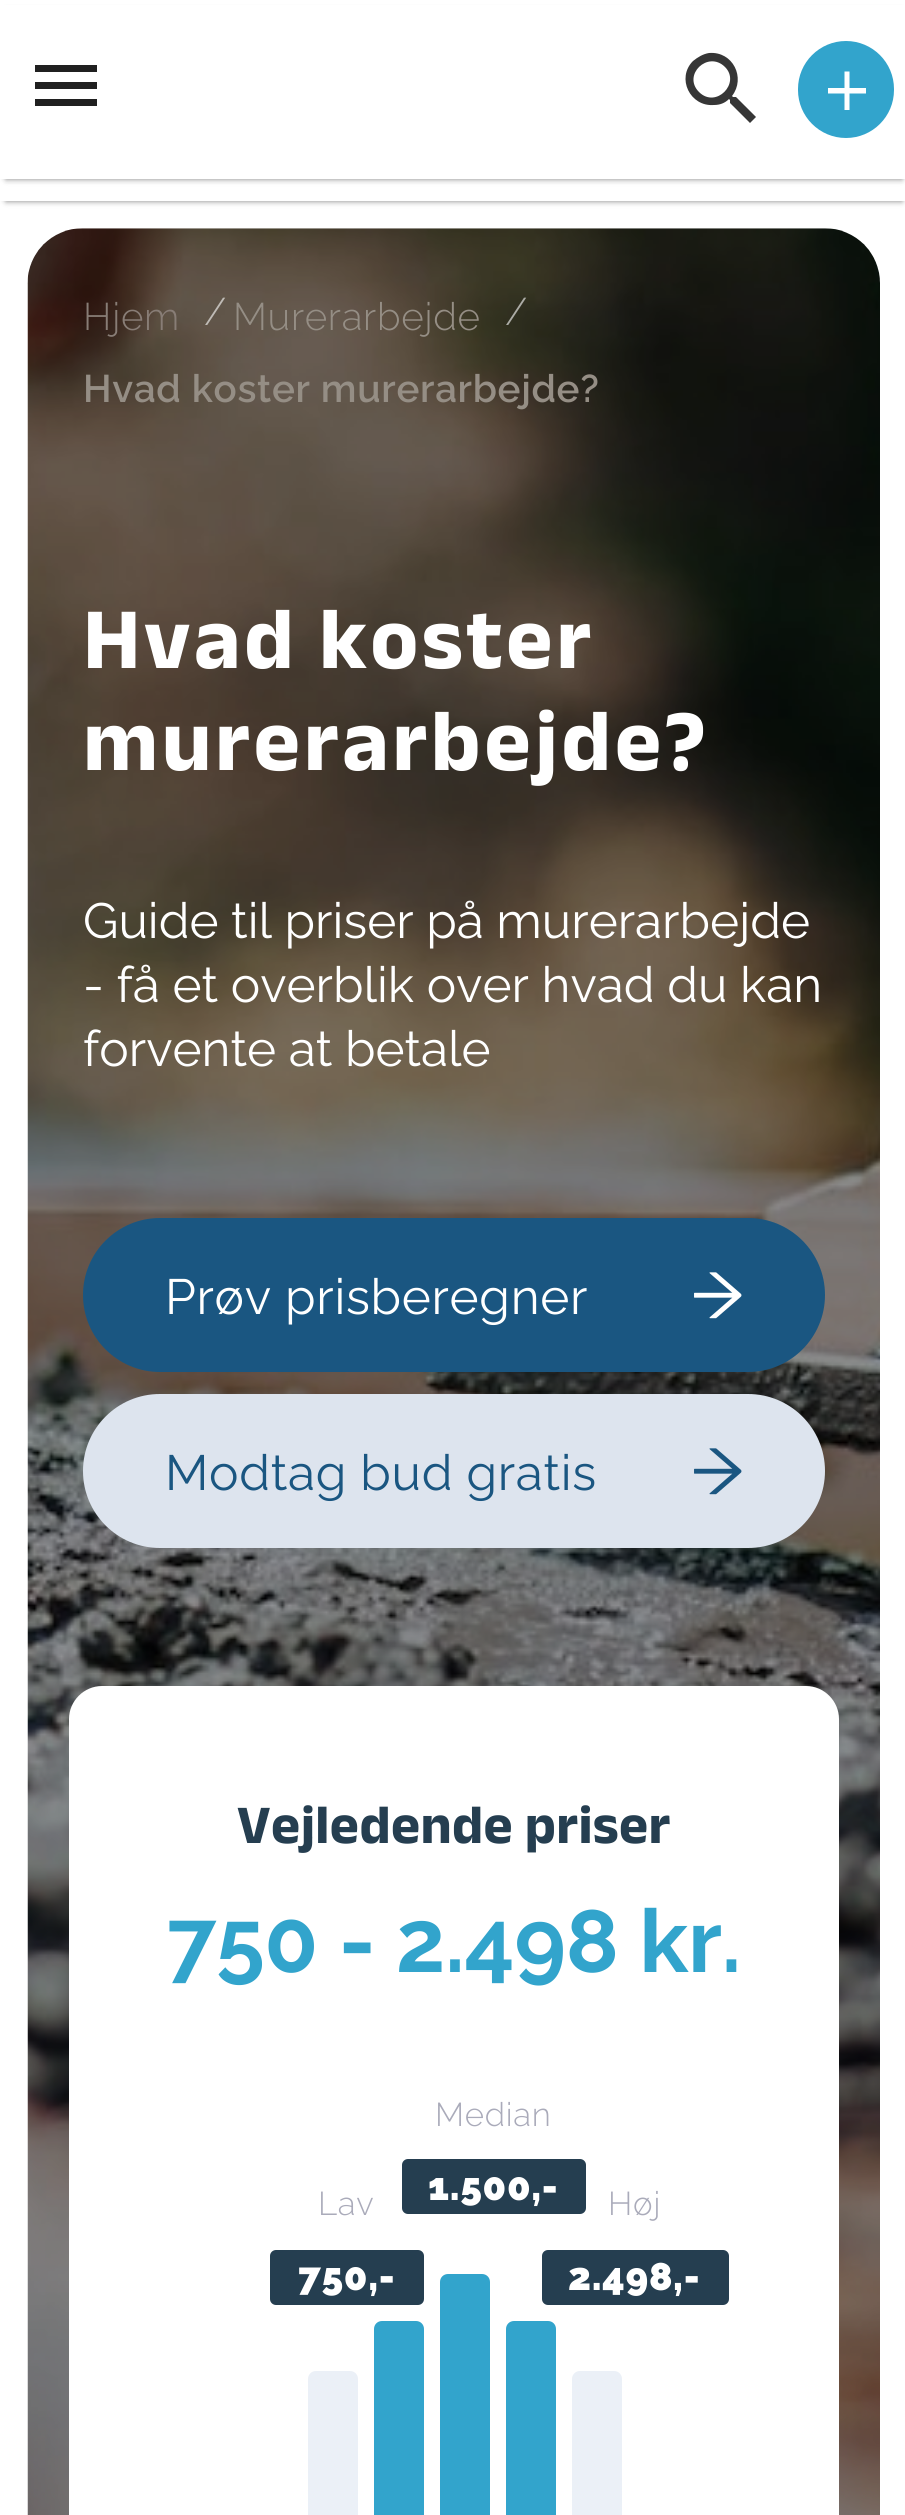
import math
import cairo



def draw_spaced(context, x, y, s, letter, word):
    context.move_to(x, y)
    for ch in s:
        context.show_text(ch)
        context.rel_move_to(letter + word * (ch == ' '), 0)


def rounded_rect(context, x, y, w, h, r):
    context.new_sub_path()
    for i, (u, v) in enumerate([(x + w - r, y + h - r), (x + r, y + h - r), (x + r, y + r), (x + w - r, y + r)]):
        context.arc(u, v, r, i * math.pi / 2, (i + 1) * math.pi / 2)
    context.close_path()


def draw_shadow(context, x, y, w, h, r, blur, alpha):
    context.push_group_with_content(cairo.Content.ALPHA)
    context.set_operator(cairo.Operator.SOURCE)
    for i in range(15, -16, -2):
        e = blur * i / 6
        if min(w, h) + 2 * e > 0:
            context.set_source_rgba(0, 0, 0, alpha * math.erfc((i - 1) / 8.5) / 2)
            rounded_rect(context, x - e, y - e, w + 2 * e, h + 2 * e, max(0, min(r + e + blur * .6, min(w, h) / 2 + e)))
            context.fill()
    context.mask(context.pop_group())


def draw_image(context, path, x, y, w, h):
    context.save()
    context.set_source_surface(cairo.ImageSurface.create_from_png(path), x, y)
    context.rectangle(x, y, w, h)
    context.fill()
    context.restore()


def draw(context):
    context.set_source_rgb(1, 1, 1)
    context.paint()
    context.set_source_rgb(0, 0, 0)
    draw_shadow(context, 6, 190, 896, 11, 0, 3, 0.5)
    context.set_source_rgb(1, 1, 1)
    context.rectangle(0, 184, 905, 17)
    context.fill()
    context.set_source_rgb(0, 0, 0)
    draw_shadow(context, 6, 11, 896, 168, 0, 3, 0.5)
    context.set_source_rgb(1, 1, 1)
    context.rectangle(0, 5, 905, 174)
    context.fill()
    context.set_source_rgb(32 / 255, 32 / 255, 32 / 255)
    context.new_path()
    context.move_to(35, 65)
    context.line_to(97, 65)
    context.line_to(97, 72)
    context.line_to(35, 72)
    context.close_path()
    context.move_to(35, 89)
    context.line_to(35, 82)
    context.line_to(97, 82)
    context.line_to(97, 89)
    context.close_path()
    context.move_to(35, 106)
    context.line_to(35, 99)
    context.line_to(97, 99)
    context.line_to(97, 106)
    context.close_path()
    context.fill()
    context.set_source_rgb(54 / 255, 54 / 255, 54 / 255)
    context.new_path()
    context.move_to(699, 92)
    context.curve_to(716, 109, 741, 83, 725, 67)
    context.curve_to(708, 50, 682, 75, 699, 92)
    context.close_path()
    context.move_to(736, 97)
    context.line_to(756, 117)
    context.line_to(750, 123)
    context.line_to(730, 103)
    context.line_to(730, 100)
    context.line_to(729, 99)
    context.curve_to(725, 103, 720, 105, 714, 105)
    context.curve_to(690, 107, 676, 78, 693, 61)
    context.curve_to(698, 57, 703, 54, 709, 53)
    context.curve_to(733, 51, 746, 78, 732, 96)
    context.line_to(733, 97)
    context.close_path()
    context.fill()
    context.set_source_rgb(50 / 255, 164 / 255, 204 / 255)
    rounded_rect(context, 798, 41, 96, 97, 48)
    context.fill()
    context.set_source_rgb(1, 1, 1)
    context.new_path()
    context.move_to(866, 93.5)
    context.line_to(849.5, 93.5)
    context.line_to(849.5, 110)
    context.line_to(844.5, 110)
    context.line_to(844.5, 93.5)
    context.line_to(828, 93.5)
    context.line_to(828, 88)
    context.line_to(844.5, 88)
    context.line_to(844.5, 71.5)
    context.line_to(849.5, 71.5)
    context.line_to(849.5, 88)
    context.line_to(866, 88)
    context.close_path()
    context.fill()
    draw_image(context, "images/1.png", 27, 228, 853, 2287)
    context.set_source_rgb(26 / 255, 86 / 255, 129 / 255)
    rounded_rect(context, 83, 1218, 742, 154, 77)
    context.fill()
    draw_image(context, "images/2.png", 694, 1272, 48, 47)
    context.set_source_rgb(221 / 255, 228 / 255, 238 / 255)
    rounded_rect(context, 83, 1394, 742, 154, 77)
    context.fill()
    draw_image(context, "images/3.png", 694, 1448, 48, 47)
    context.set_source_rgb(1, 1, 1)
    context.new_path()
    context.move_to(102, 1686)
    context.line_to(806, 1686)
    context.curve_to(824, 1686, 839, 1701, 839, 1719)
    context.line_to(839, 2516)
    context.line_to(69, 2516)
    context.line_to(69, 1719)
    context.curve_to(69, 1701, 84, 1686, 102, 1686)
    context.close_path()
    context.fill()
    context.set_source_rgb(37 / 255, 62 / 255, 80 / 255)
    rounded_rect(context, 402, 2159, 184, 55, 6)
    context.fill()
    rounded_rect(context, 270, 2250, 154, 55, 6)
    context.fill()
    rounded_rect(context, 542, 2250, 187, 55, 6)
    context.fill()
    context.set_source_rgb(235 / 255, 240 / 255, 247 / 255)
    context.new_path()
    context.move_to(316, 2371)
    context.line_to(350, 2371)
    context.curve_to(354.5, 2371, 358, 2374.5, 358, 2379)
    context.line_to(358, 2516)
    context.line_to(308, 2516)
    context.line_to(308, 2379)
    context.curve_to(308, 2374.5, 311.5, 2371, 316, 2371)
    context.close_path()
    context.fill()
    context.set_source_rgb(50 / 255, 164 / 255, 204 / 255)
    context.new_path()
    context.move_to(382, 2321)
    context.line_to(416, 2321)
    context.curve_to(420.5, 2321, 424, 2324.5, 424, 2329)
    context.line_to(424, 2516)
    context.line_to(374, 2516)
    context.line_to(374, 2329)
    context.curve_to(374, 2324.5, 377.5, 2321, 382, 2321)
    context.close_path()
    context.fill()
    context.new_path()
    context.move_to(448, 2274)
    context.line_to(482, 2274)
    context.curve_to(486.5, 2274, 490, 2277.5, 490, 2282)
    context.line_to(490, 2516)
    context.line_to(440, 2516)
    context.line_to(440, 2282)
    context.curve_to(440, 2277.5, 443.5, 2274, 448, 2274)
    context.close_path()
    context.fill()
    context.new_path()
    context.move_to(514, 2321)
    context.line_to(548, 2321)
    context.curve_to(552.5, 2321, 556, 2324.5, 556, 2329)
    context.line_to(556, 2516)
    context.line_to(506, 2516)
    context.line_to(506, 2329)
    context.curve_to(506, 2324.5, 509.5, 2321, 514, 2321)
    context.close_path()
    context.fill()
    context.set_source_rgb(235 / 255, 240 / 255, 247 / 255)
    context.new_path()
    context.move_to(580, 2371)
    context.line_to(614, 2371)
    context.curve_to(618.5, 2371, 622, 2374.5, 622, 2379)
    context.line_to(622, 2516)
    context.line_to(572, 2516)
    context.line_to(572, 2379)
    context.curve_to(572, 2374.5, 575.5, 2371, 580, 2371)
    context.close_path()
    context.fill()
    context.select_font_face("Raleway Light")
    context.set_font_size(38.5)
    context.set_source_rgb(136 / 255, 125 / 255, 118 / 255)
    draw_spaced(context, 83, 330, "Hjem", 0.7, 0)
    context.set_source_rgb(191 / 255, 187 / 255, 182 / 255)
    draw_spaced(context, 204, 325, "/", 0.7, 0)
    context.set_source_rgb(149 / 255, 142 / 255, 133 / 255)
    draw_spaced(context, 233, 330, "Murerarbejde", 0.7, 0)
    context.set_source_rgb(172 / 255, 172 / 255, 166 / 255)
    draw_spaced(context, 505, 325, "/", 0.7, 0)
    context.select_font_face("Raleway SemiBold")
    context.set_source_rgb(149 / 255, 142 / 255, 133 / 255)
    draw_spaced(context, 83, 402, "Hvad koster murerarbejde?", 0.7, 0)
    context.select_font_face("Anek Latin", cairo.FontSlant.NORMAL, cairo.FontWeight.BOLD)
    context.set_font_size(88)
    context.set_source_rgb(1, 1, 1)
    draw_spaced(context, 83, 668, "Hvad koster", 3.6, 0)
    draw_spaced(context, 83, 770, "murerarbejde?", 3.6, 0)
    context.select_font_face("Raleway")
    context.set_font_size(49.5)
    context.move_to(83, 938)
    context.show_text("Guide til priser på murerarbejde")
    context.move_to(83, 1002)
    context.show_text("- få et overblik over hvad du kan")
    context.move_to(83, 1066)
    context.show_text("forvente at betale")
    draw_spaced(context, 165, 1314, "Prøv prisberegner", 0.7, 0)
    context.set_source_rgb(26 / 255, 86 / 255, 129 / 255)
    draw_spaced(context, 165, 1490, "Modtag bud gratis", 0.7, 0)
    context.select_font_face("Anek Latin", cairo.FontSlant.NORMAL, cairo.FontWeight.BOLD)
    context.set_font_size(55)
    context.set_source_rgb(37 / 255, 62 / 255, 80 / 255)
    draw_spaced(context, 237, 1843, "Vejledende priser", 0.4, 0)
    context.select_font_face("Raleway", cairo.FontSlant.NORMAL, cairo.FontWeight.BOLD)
    context.set_font_size(88)
    context.set_source_rgb(50 / 255, 164 / 255, 204 / 255)
    draw_spaced(context, 167, 1972, "750 - 2.498 kr.", -0.4, 0)
    context.select_font_face("Raleway Light")
    context.set_font_size(33)
    context.set_source_rgb(170 / 255, 171 / 255, 186 / 255)
    draw_spaced(context, 435, 2126, "Median", 0.7, 0)
    context.select_font_face("Raleway Black")
    context.set_font_size(38.5)
    context.set_source_rgb(1, 1, 1)
    draw_spaced(context, 428, 2200, "1.500,-", 0.7, 0)
    context.select_font_face("Raleway Light")
    context.set_font_size(33)
    context.set_source_rgb(170 / 255, 171 / 255, 186 / 255)
    draw_spaced(context, 318, 2215, "Lav", 0.7, 0)
    context.select_font_face("Raleway Black")
    context.set_font_size(38.5)
    context.set_source_rgb(1, 1, 1)
    draw_spaced(context, 298, 2290, "750,-", 0.7, 0)
    context.select_font_face("Raleway Light")
    context.set_font_size(33)
    context.set_source_rgb(170 / 255, 171 / 255, 186 / 255)
    draw_spaced(context, 608, 2215, "Høj", 0.7, 0)
    context.select_font_face("Raleway Black")
    context.set_font_size(38.5)
    context.set_source_rgb(1, 1, 1)
    draw_spaced(context, 568, 2290, "2.498,-", 0.7, 0)


surface = cairo.ImageSurface(cairo.Format.RGB24, 905, 2515)
context = cairo.Context(surface)
options = cairo.FontOptions()
options.set_hint_metrics(cairo.HintMetrics.OFF)
options.set_hint_style(cairo.HintStyle.NONE)
context.set_font_options(options)
context.set_miter_limit(4)
draw(context)
surface.write_to_png("out.png")
